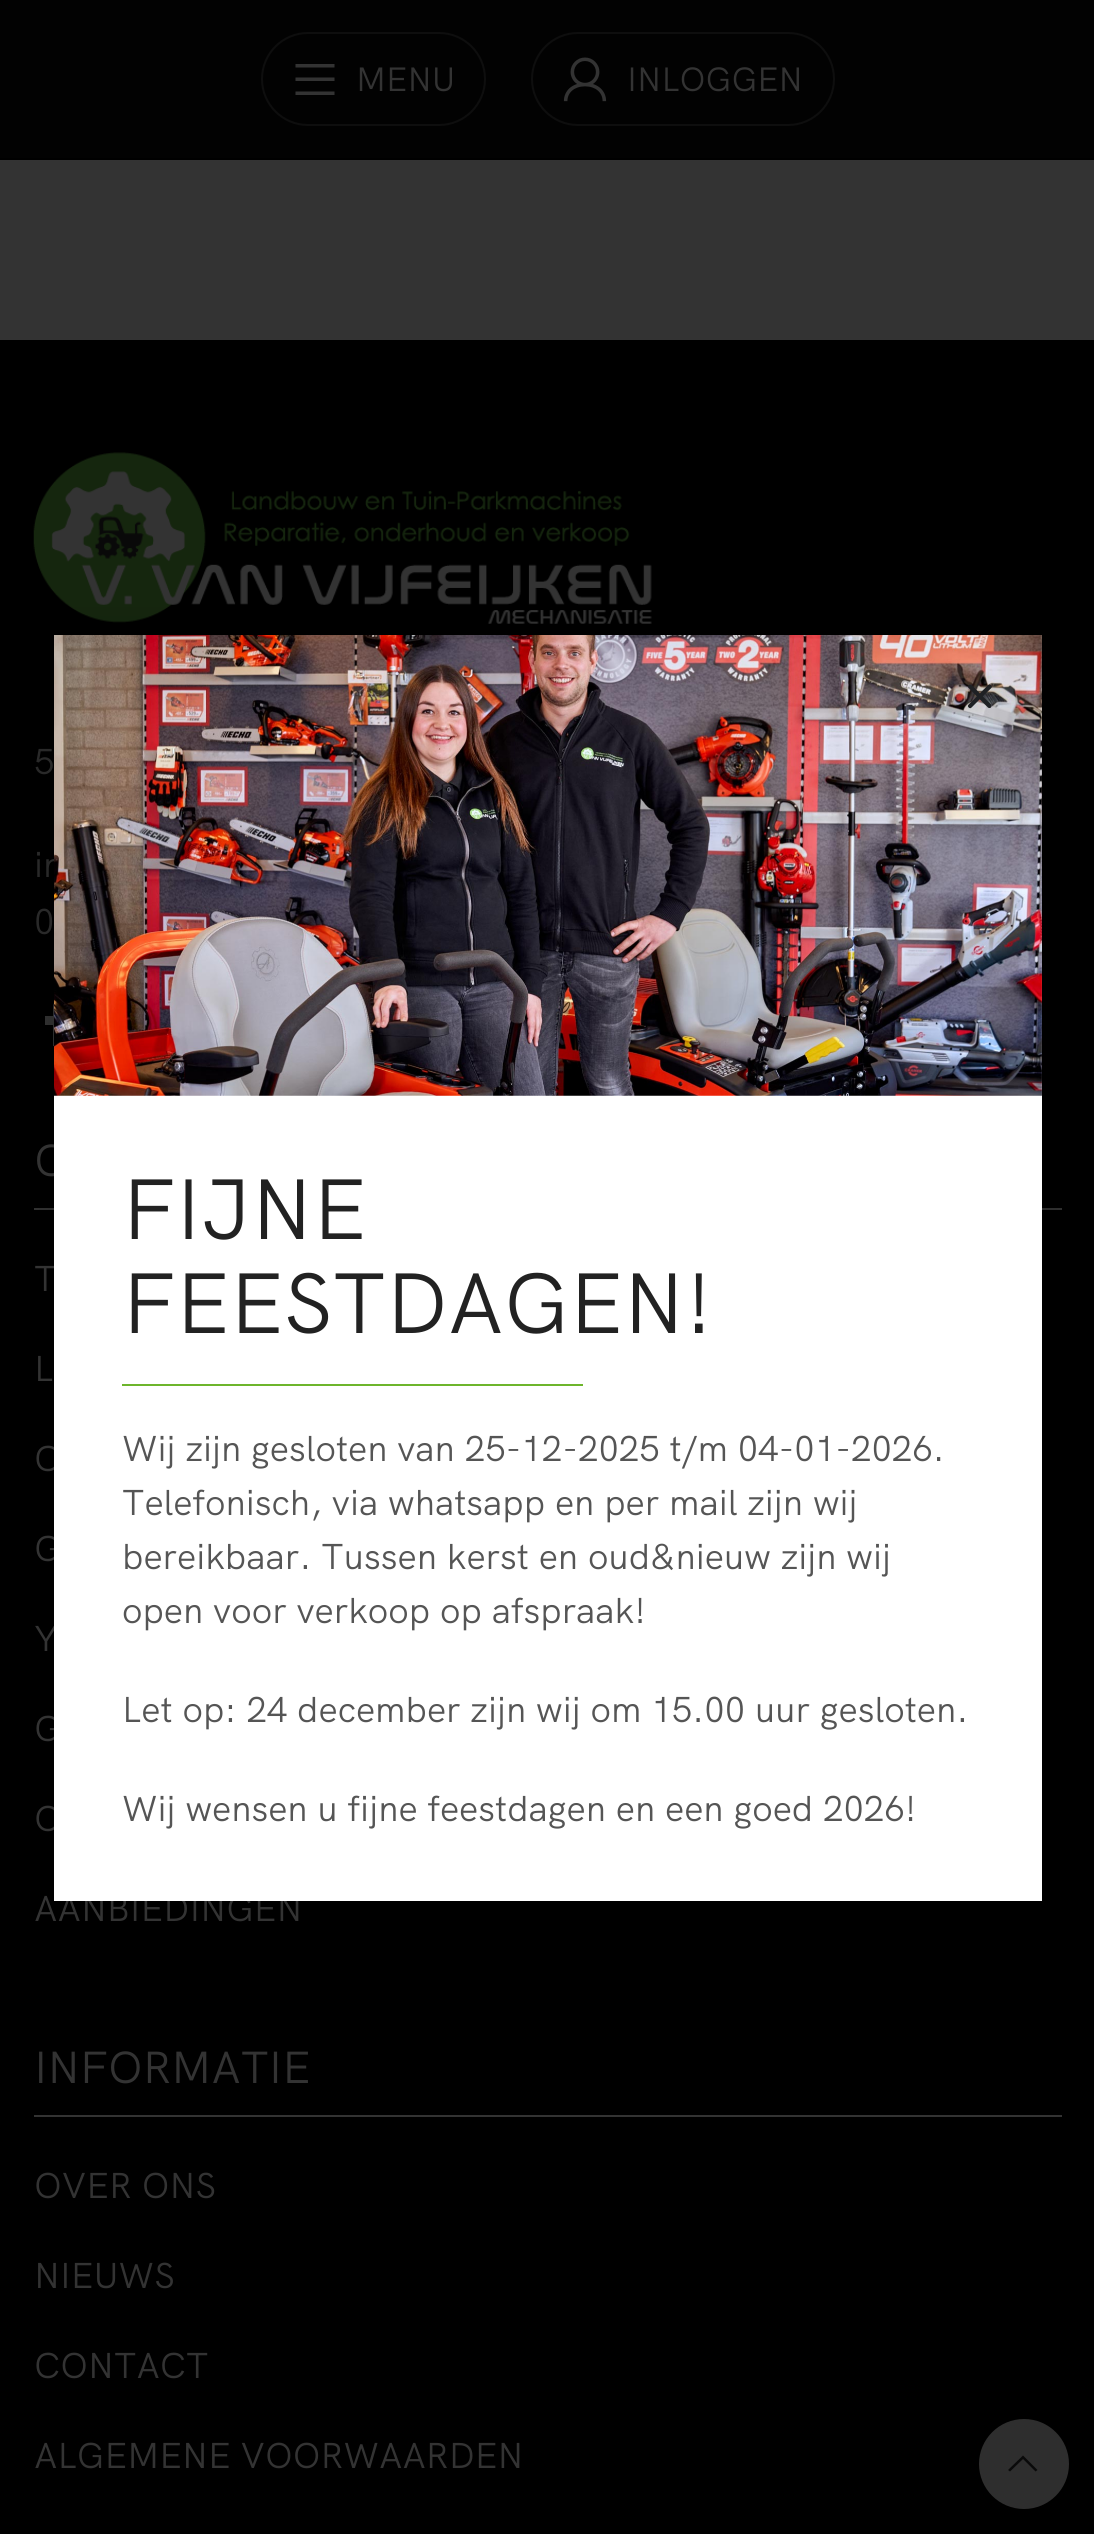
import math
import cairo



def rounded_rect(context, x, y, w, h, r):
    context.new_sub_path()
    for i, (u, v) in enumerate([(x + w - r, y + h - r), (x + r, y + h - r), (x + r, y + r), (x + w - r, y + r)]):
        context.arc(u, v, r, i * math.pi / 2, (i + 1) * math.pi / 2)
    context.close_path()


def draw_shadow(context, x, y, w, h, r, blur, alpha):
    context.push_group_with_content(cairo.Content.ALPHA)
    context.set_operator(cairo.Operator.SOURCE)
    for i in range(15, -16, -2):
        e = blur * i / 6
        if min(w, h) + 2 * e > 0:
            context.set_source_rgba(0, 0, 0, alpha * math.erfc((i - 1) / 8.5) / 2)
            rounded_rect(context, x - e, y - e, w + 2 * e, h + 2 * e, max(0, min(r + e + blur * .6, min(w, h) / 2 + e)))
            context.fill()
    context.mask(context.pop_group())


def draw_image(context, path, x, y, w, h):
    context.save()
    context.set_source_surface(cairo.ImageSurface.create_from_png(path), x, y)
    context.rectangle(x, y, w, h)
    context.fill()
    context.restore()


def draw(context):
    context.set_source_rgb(51 / 255, 51 / 255, 51 / 255)
    context.paint()
    context.set_source_rgb(2 / 255, 2 / 255, 2 / 255)
    context.rectangle(0, 0, 1094, 158)
    context.fill()
    context.set_source_rgb(0, 0, 0)
    context.rectangle(0, 158, 1094, 2)
    context.fill()
    rounded_rect(context, 262, 33, 223, 92, 46)
    context.set_source_rgb(14 / 255, 14 / 255, 14 / 255)
    context.stroke()
    context.set_source_rgb(51 / 255, 51 / 255, 51 / 255)
    context.new_path()
    context.move_to(295.5, 67.5)
    context.line_to(334.5, 67.5)
    context.line_to(334.5, 64)
    context.line_to(295.5, 64)
    context.close_path()
    context.move_to(295.5, 81)
    context.line_to(334.5, 81)
    context.line_to(334.5, 77.5)
    context.line_to(295.5, 77.5)
    context.close_path()
    context.move_to(295.5, 95)
    context.line_to(334.5, 95)
    context.line_to(334.5, 91.5)
    context.line_to(295.5, 91.5)
    context.close_path()
    context.fill()
    rounded_rect(context, 532, 33, 302, 92, 46)
    context.set_source_rgb(14 / 255, 14 / 255, 14 / 255)
    context.stroke()
    draw_image(context, "images/1.png", 563, 57, 44, 45)
    context.set_source_rgb(0, 0, 0)
    context.rectangle(0, 340, 1094, 2194)
    context.fill()
    draw_image(context, "images/2.png", 33, 452, 619, 172)
    context.set_source_rgb(51 / 255, 51 / 255, 51 / 255)
    context.new_path()
    context.move_to(70, 1025)
    context.line_to(71, 1016)
    context.line_to(63, 1016)
    context.curve_to(63, 1007, 62, 1005, 72, 1005)
    context.line_to(72, 997)
    context.curve_to(64, 996, 55, 997, 53, 1006)
    context.line_to(53, 1016)
    context.line_to(45, 1016)
    context.line_to(45, 1025)
    context.line_to(53, 1025)
    context.line_to(53, 1046)
    context.line_to(63, 1046)
    context.line_to(63, 1025)
    context.close_path()
    context.fill()
    context.rectangle(34, 1208, 1028, 2)
    context.fill()
    context.rectangle(34, 2115, 1028, 2)
    context.fill()
    context.set_source_rgb(0, 0, 0)
    draw_shadow(context, 52, 646, 1001, 1280, 0, 26, 0.2)
    context.set_source_rgb(46 / 255, 46 / 255, 46 / 255)
    context.arc(1024, 2464, 45, 0, 2 * math.pi)
    context.fill()
    context.set_source_rgb(10 / 255, 10 / 255, 10 / 255)
    context.new_path()
    context.move_to(1035.5, 2471.5)
    context.line_to(1037.5, 2470)
    context.line_to(1023, 2455.5)
    context.line_to(1008, 2470)
    context.line_to(1010, 2471.5)
    context.line_to(1023, 2459)
    context.close_path()
    context.fill()
    context.select_font_face("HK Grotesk")
    context.set_font_size(33.75)
    context.set_source_rgb(51 / 255, 51 / 255, 51 / 255)
    context.move_to(356, 91)
    context.show_text("MENU")
    context.move_to(627, 91)
    context.show_text("INLOGGEN")
    context.set_font_size(36)
    context.set_source_rgb(41 / 255, 41 / 255, 41 / 255)
    context.move_to(34, 774)
    context.show_text("5")
    context.move_to(34, 877)
    context.show_text("in")
    context.move_to(34, 934)
    context.show_text("0")
    context.set_font_size(45)
    context.set_source_rgb(51 / 255, 51 / 255, 51 / 255)
    context.move_to(34, 1176)
    context.show_text("C")
    context.set_font_size(36)
    context.move_to(34, 1291)
    context.show_text("T")
    context.move_to(34, 1381)
    context.show_text("L")
    context.move_to(34, 1471)
    context.show_text("C")
    context.move_to(34, 1561)
    context.show_text("G")
    context.move_to(34, 1651)
    context.show_text("Y")
    context.move_to(34, 1741)
    context.show_text("G")
    context.move_to(34, 1831)
    context.show_text("O")
    context.move_to(34, 1921)
    context.show_text("AANBIEDINGEN")
    context.set_font_size(45)
    context.move_to(34, 2083)
    context.show_text("INFORMATIE")
    context.set_font_size(36)
    context.move_to(34, 2198)
    context.show_text("OVER ONS")
    context.move_to(34, 2288)
    context.show_text("NIEUWS")
    context.move_to(34, 2378)
    context.show_text("CONTACT")
    context.move_to(34, 2468)
    context.show_text("ALGEMENE VOORWAARDEN")
    context.set_source_rgb(1, 1, 1)
    context.rectangle(54, 635, 988, 1266)
    context.fill()
    draw_image(context, "images/4.png", 54, 635, 988, 461)
    draw_image(context, "images/3.png", 967, 684, 25, 25)
    context.set_font_size(85.5)
    context.set_source_rgb(34 / 255, 34 / 255, 34 / 255)
    context.move_to(122, 1239)
    context.show_text("FIJNE")
    context.move_to(122, 1333)
    context.show_text("FEESTDAGEN!")
    context.set_source_rgb(109 / 255, 181 / 255, 44 / 255)
    context.rectangle(122, 1384, 461, 2)
    context.fill()
    context.set_font_size(36)
    context.set_source_rgb(85 / 255, 85 / 255, 85 / 255)
    context.move_to(122, 1461)
    context.show_text("Wij zijn gesloten van 25-12-2025 t/m 04-01-2026.")
    context.move_to(122, 1515)
    context.show_text("Telefonisch, via whatsapp en per mail zijn wij")
    context.move_to(122, 1569)
    context.show_text("bereikbaar. Tussen kerst en oud&nieuw zijn wij")
    context.move_to(122, 1623)
    context.show_text("open voor verkoop op afspraak!")
    context.move_to(122, 1722)
    context.show_text("Let op: 24 december zijn wij om 15.00 uur gesloten.")
    context.move_to(122, 1821)
    context.show_text("Wij wensen u fijne feestdagen en een goed 2026!")


surface = cairo.ImageSurface(cairo.Format.RGB24, 1094, 2534)
context = cairo.Context(surface)
options = cairo.FontOptions()
options.set_hint_metrics(cairo.HintMetrics.OFF)
options.set_hint_style(cairo.HintStyle.NONE)
context.set_font_options(options)
context.set_miter_limit(4)
draw(context)
surface.write_to_png("out.png")
